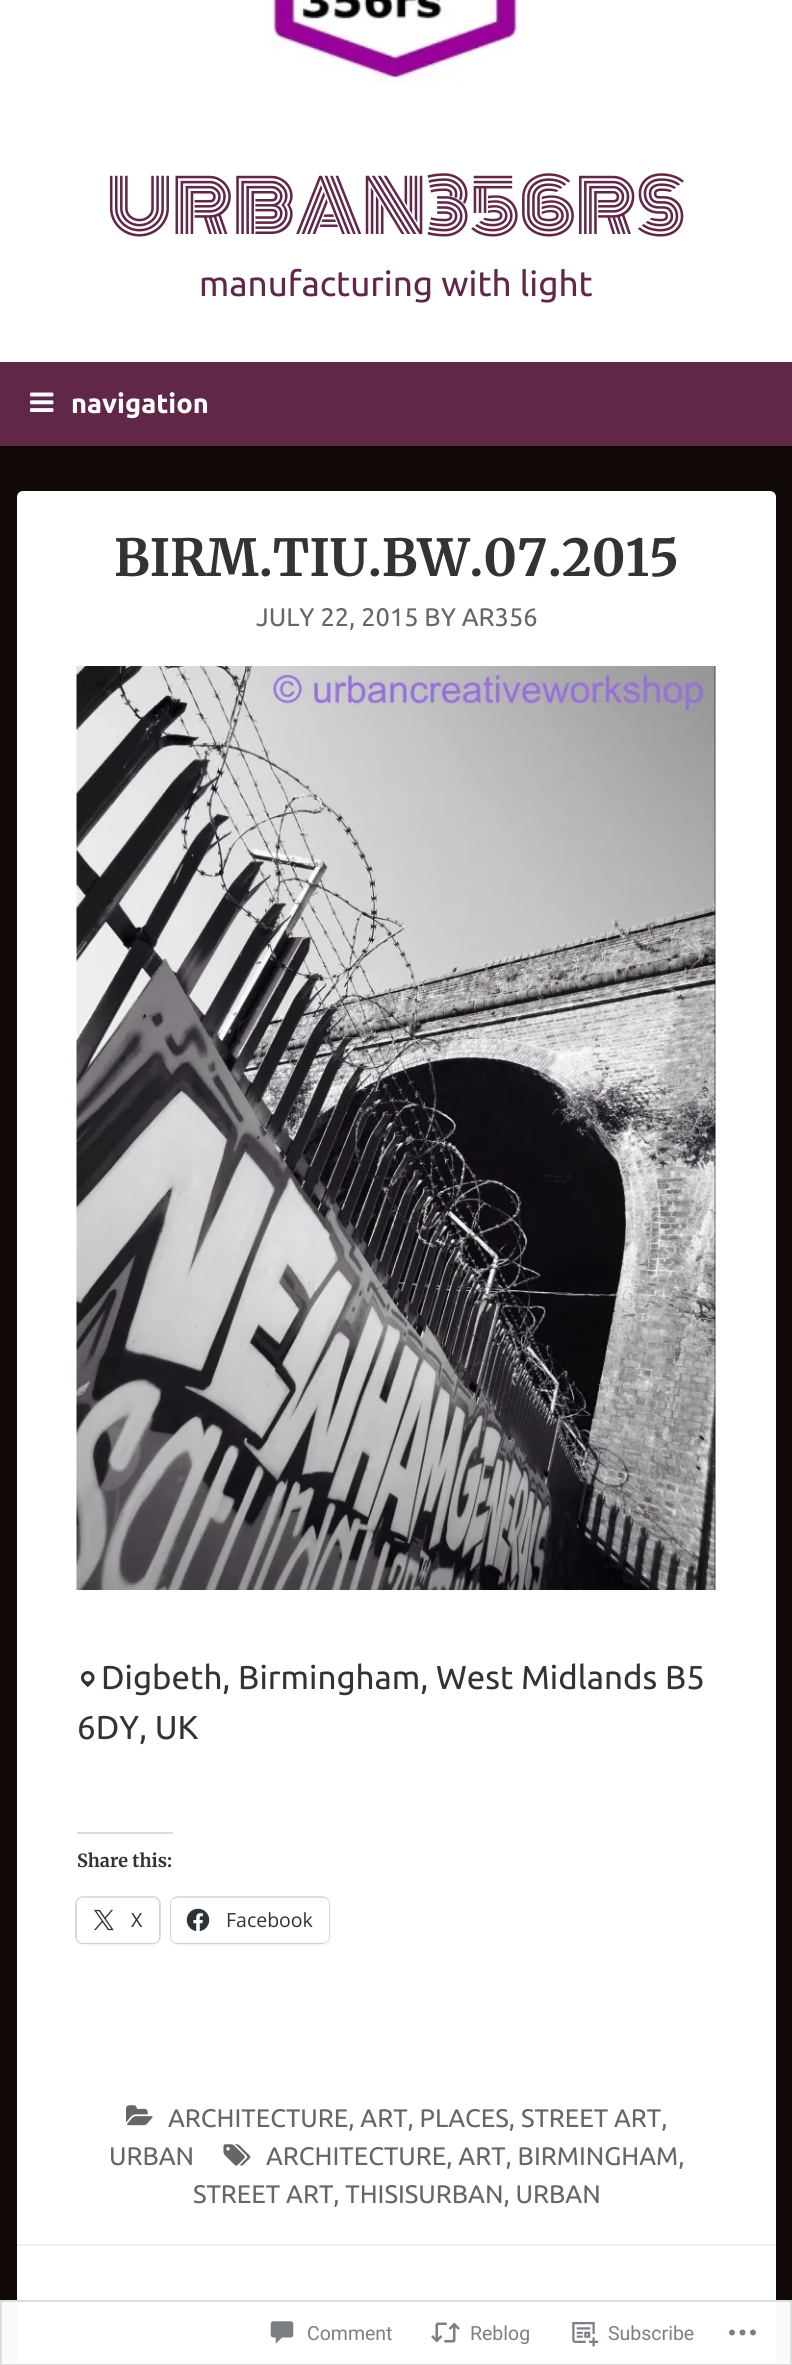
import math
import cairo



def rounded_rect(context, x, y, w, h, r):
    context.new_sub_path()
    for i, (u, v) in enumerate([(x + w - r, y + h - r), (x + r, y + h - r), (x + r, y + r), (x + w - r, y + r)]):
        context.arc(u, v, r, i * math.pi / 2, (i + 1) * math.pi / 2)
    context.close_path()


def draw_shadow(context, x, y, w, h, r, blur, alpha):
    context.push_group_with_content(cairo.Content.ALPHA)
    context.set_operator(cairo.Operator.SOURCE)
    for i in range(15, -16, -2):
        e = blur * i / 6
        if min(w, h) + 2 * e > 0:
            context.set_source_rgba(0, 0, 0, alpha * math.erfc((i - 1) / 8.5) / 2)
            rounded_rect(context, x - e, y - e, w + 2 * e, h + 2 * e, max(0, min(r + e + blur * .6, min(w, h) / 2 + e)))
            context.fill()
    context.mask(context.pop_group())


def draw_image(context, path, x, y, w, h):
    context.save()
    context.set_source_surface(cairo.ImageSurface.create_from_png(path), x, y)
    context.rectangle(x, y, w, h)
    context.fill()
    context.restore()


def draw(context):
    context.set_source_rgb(17 / 255, 8 / 255, 8 / 255)
    context.paint()
    context.set_source_rgb(250 / 255, 250 / 255, 250 / 255)
    context.rectangle(0, 2300, 792, 65)
    context.fill()
    context.set_source_rgb(1, 1, 1)
    context.rectangle(0, 0, 792, 362)
    context.fill()
    draw_image(context, "images/1.png", 271, 0, 252, 85)
    context.set_source_rgb(96 / 255, 39 / 255, 73 / 255)
    context.rectangle(0, 362, 792, 84)
    context.fill()
    draw_image(context, "images/2.png", 30, 392, 24, 20)
    context.set_source_rgb(1, 1, 1)
    rounded_rect(context, 17, 491, 759, 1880, 6)
    context.fill()
    draw_image(context, "images/3.png", 76, 666, 640, 924)
    draw_image(context, "images/4.png", 81, 1671, 14, 17)
    context.set_source_rgb(220 / 255, 220 / 255, 222 / 255)
    context.rectangle(77, 1832, 96, 2)
    context.fill()
    rounded_rect(context, 76, 1897, 84, 46, 7)
    context.set_source_rgb(224 / 255, 224 / 255, 224 / 255)
    context.stroke()
    context.set_source_rgb(0, 0, 0)
    draw_shadow(context, 77, 1899, 82, 45, 6, 1.5, 0.12)
    context.set_source_rgb(1, 1, 1)
    rounded_rect(context, 77, 1898, 82, 45, 6)
    context.fill()
    draw_image(context, "images/5.png", 94, 1909, 20, 22)
    rounded_rect(context, 171, 1897, 158, 46, 7)
    context.set_source_rgb(224 / 255, 224 / 255, 224 / 255)
    context.stroke()
    context.set_source_rgb(0, 0, 0)
    draw_shadow(context, 171, 1899, 158, 45, 6, 1.5, 0.12)
    context.set_source_rgb(1, 1, 1)
    rounded_rect(context, 171, 1898, 158, 45, 6)
    context.fill()
    draw_image(context, "images/6.png", 186, 1908, 24, 23)
    draw_image(context, "images/7.png", 126, 2105, 27, 21)
    draw_image(context, "images/8.png", 223, 2144, 28, 22)
    context.set_source_rgb(240 / 255, 240 / 255, 240 / 255)
    context.rectangle(17, 2244, 759, 2)
    context.fill()
    context.rectangle(1, 2301, 790, 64)
    context.set_source_rgba(220 / 255, 220 / 255, 222 / 255, 0.98)
    context.stroke()
    draw_image(context, "images/9.png", 270, 2321, 24, 23)
    draw_image(context, "images/10.png", 431, 2322, 29, 21)
    draw_image(context, "images/11.png", 572, 2322, 27, 25)
    draw_image(context, "images/12.png", 729, 2329, 27, 7)
    context.select_font_face("Monoton")
    context.set_font_size(72)
    context.set_source_rgb(96 / 255, 39 / 255, 73 / 255)
    context.move_to(107, 234)
    context.show_text("URBAN356RS")
    context.select_font_face("Ubuntu")
    context.set_font_size(35.1)
    context.move_to(199, 296)
    context.show_text("manufacturing with light")
    context.select_font_face("Ubuntu", cairo.FontSlant.NORMAL, cairo.FontWeight.BOLD)
    context.set_font_size(27.25)
    context.set_source_rgb(1, 1, 1)
    context.move_to(71, 413)
    context.show_text("navigation")
    context.select_font_face("Merriweather", cairo.FontSlant.NORMAL, cairo.FontWeight.BOLD)
    context.set_font_size(51)
    context.set_source_rgb(51 / 255, 51 / 255, 51 / 255)
    context.move_to(114, 576)
    context.show_text("BIRM.TIU.BW.07.2015")
    context.select_font_face("Ubuntu")
    context.set_font_size(25.4)
    context.set_source_rgb(102 / 255, 102 / 255, 102 / 255)
    context.move_to(256, 626)
    context.show_text("JULY 22, 2015 BY AR356")
    context.set_font_size(33.1)
    context.set_source_rgb(51 / 255, 51 / 255, 51 / 255)
    context.move_to(101, 1689)
    context.show_text("Digbeth, Birmingham, West Midlands B5")
    context.move_to(77, 1739)
    context.show_text("6DY, UK")
    context.select_font_face("Merriweather", cairo.FontSlant.NORMAL, cairo.FontWeight.BOLD)
    context.set_font_size(18)
    context.move_to(77, 1867)
    context.show_text("Share this:")
    context.select_font_face("Open Sans")
    context.set_font_size(19.5)
    context.set_source_rgb(44 / 255, 51 / 255, 56 / 255)
    context.move_to(131, 1927)
    context.show_text("X")
    context.move_to(226, 1927)
    context.show_text("Facebook")
    context.select_font_face("Ubuntu")
    context.set_font_size(25.4)
    context.set_source_rgb(102 / 255, 102 / 255, 102 / 255)
    context.move_to(168, 2127)
    context.show_text("ARCHITECTURE, ART, PLACES, STREET ART,")
    context.move_to(109, 2165)
    context.show_text("URBAN")
    context.move_to(266, 2165)
    context.show_text("ARCHITECTURE, ART, BIRMINGHAM,")
    context.move_to(193, 2203)
    context.show_text("STREET ART, THISISURBAN, URBAN")
    context.select_font_face("Roboto")
    context.set_font_size(19.5)
    context.set_source_rgb(123 / 255, 127 / 255, 132 / 255)
    context.move_to(307, 2340)
    context.show_text("Comment")
    context.move_to(470, 2340)
    context.show_text("Reblog")
    context.move_to(608, 2340)
    context.show_text("Subscribe")


surface = cairo.ImageSurface(cairo.Format.RGB24, 792, 2365)
context = cairo.Context(surface)
options = cairo.FontOptions()
options.set_hint_metrics(cairo.HintMetrics.OFF)
options.set_hint_style(cairo.HintStyle.NONE)
context.set_font_options(options)
context.set_miter_limit(4)
draw(context)
surface.write_to_png("out.png")
